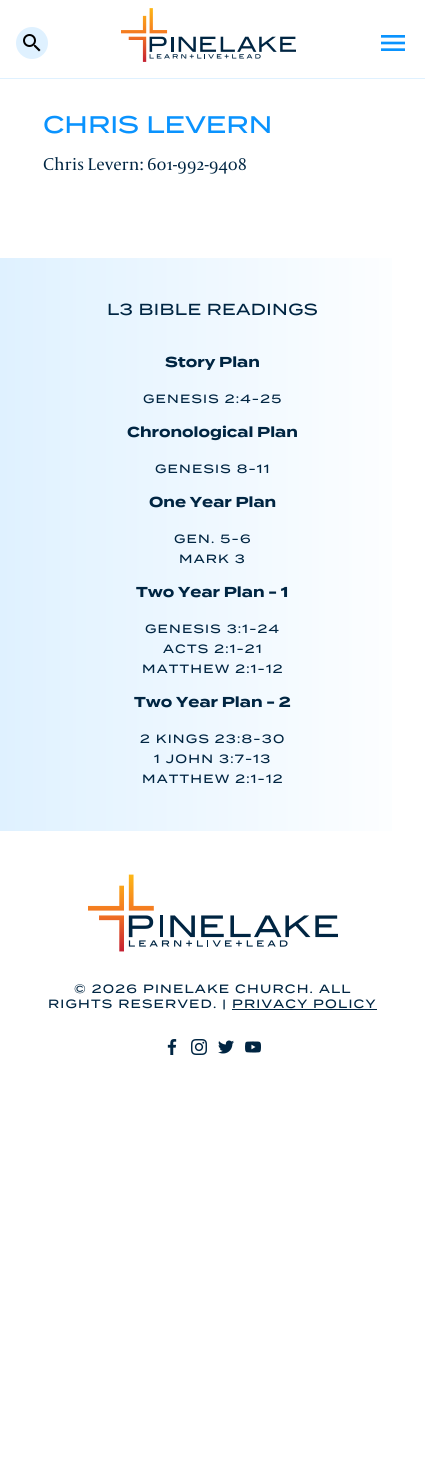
import math
import cairo



def draw_spaced(context, x, y, s, letter, word):
    context.move_to(x, y)
    for ch in s:
        context.show_text(ch)
        context.rel_move_to(letter + word * (ch == ' '), 0)


def draw_image(context, path, x, y, w, h):
    context.save()
    context.set_source_surface(cairo.ImageSurface.create_from_png(path), x, y)
    context.rectangle(x, y, w, h)
    context.fill()
    context.restore()


def draw(context):
    context.set_source_rgb(1, 1, 1)
    context.paint()
    context.set_source_rgb(223 / 255, 241 / 255, 1)
    context.rectangle(0, 78, 425, 1)
    context.fill()
    context.arc(32, 43, 16, 0, 2 * math.pi)
    context.fill()
    draw_image(context, "images/1.png", 23, 34, 18, 18)
    draw_image(context, "images/2.png", 121, 8, 175, 54)
    draw_image(context, "images/3.png", 381, 35, 24, 16)
    gradient = cairo.LinearGradient(0, 545, 425, 545)
    gradient.add_color_stop_rgba(0, 223 / 255, 241 / 255, 1, 1)
    gradient.add_color_stop_rgba(1, 1, 1, 1, 1)
    context.set_source(gradient)
    context.rectangle(0, 258, 392, 573)
    context.fill()
    draw_image(context, "images/4.png", 88, 874, 250, 78)
    context.set_source_rgb(0, 37 / 255, 66 / 255)
    context.rectangle(232, 1009, 145, 1)
    context.fill()
    draw_image(context, "images/5.png", 167, 1039, 10, 16)
    draw_image(context, "images/6.png", 191, 1039, 16, 16)
    draw_image(context, "images/7.png", 218, 1040, 16, 14)
    draw_image(context, "images/8.png", 245, 1041, 16, 12)
    context.select_font_face("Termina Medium")
    context.set_font_size(24)
    context.set_source_rgb(10 / 255, 147 / 255, 254 / 255)
    context.move_to(43, 133)
    context.show_text("CHRIS LEVERN")
    context.select_font_face("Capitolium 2")
    context.set_font_size(18)
    context.set_source_rgb(0, 37 / 255, 66 / 255)
    context.move_to(43, 170)
    context.show_text("Chris Levern: 601-992-9408")
    context.select_font_face("Termina Medium")
    context.set_font_size(16)
    draw_spaced(context, 107, 315, "L3 BIBLE READINGS", 0.4, 0)
    context.select_font_face("Termina", cairo.FontSlant.NORMAL, cairo.FontWeight.BOLD)
    context.set_font_size(14.4)
    context.move_to(165, 367)
    context.show_text("Story Plan")
    context.select_font_face("Termina Medium")
    context.set_font_size(12)
    draw_spaced(context, 143, 403, "GENESIS 2:4-25", 1.2, 0)
    context.select_font_face("Termina", cairo.FontSlant.NORMAL, cairo.FontWeight.BOLD)
    context.set_font_size(14.4)
    context.move_to(127, 437)
    context.show_text("Chronological Plan")
    context.select_font_face("Termina Medium")
    context.set_font_size(12)
    draw_spaced(context, 155, 473, "GENESIS 8-11", 1.2, 0)
    context.select_font_face("Termina", cairo.FontSlant.NORMAL, cairo.FontWeight.BOLD)
    context.set_font_size(14.4)
    context.move_to(149, 507)
    context.show_text("One Year Plan")
    context.select_font_face("Termina Medium")
    context.set_font_size(12)
    draw_spaced(context, 174, 543, "GEN. 5-6", 1.2, 0)
    draw_spaced(context, 179, 563, "MARK 3", 1.2, 0)
    context.select_font_face("Termina", cairo.FontSlant.NORMAL, cairo.FontWeight.BOLD)
    context.set_font_size(14.4)
    context.move_to(136, 597)
    context.show_text("Two Year Plan - 1")
    context.select_font_face("Termina Medium")
    context.set_font_size(12)
    draw_spaced(context, 145, 633, "GENESIS 3:1-24", 1.2, 0)
    draw_spaced(context, 163, 653, "ACTS 2:1-21", 1.2, 0)
    draw_spaced(context, 142, 673, "MATTHEW 2:1-12", 1.2, 0)
    context.select_font_face("Termina", cairo.FontSlant.NORMAL, cairo.FontWeight.BOLD)
    context.set_font_size(14.4)
    context.move_to(134, 707)
    context.show_text("Two Year Plan - 2")
    context.select_font_face("Termina Medium")
    context.set_font_size(12)
    draw_spaced(context, 140, 743, "2 KINGS 23:8-30", 1.2, 0)
    draw_spaced(context, 154, 763, "1 JOHN 3:7-13", 1.2, 0)
    draw_spaced(context, 142, 783, "MATTHEW 2:1-12", 1.2, 0)
    draw_spaced(context, 74, 993, "© 2026 PINELAKE CHURCH. ALL", 1.2, 0)
    draw_spaced(context, 48, 1008, "RIGHTS RESERVED. | PRIVACY POLICY", 1.2, 0)


surface = cairo.ImageSurface(cairo.Format.RGB24, 425, 1482)
context = cairo.Context(surface)
options = cairo.FontOptions()
options.set_hint_metrics(cairo.HintMetrics.OFF)
options.set_hint_style(cairo.HintStyle.NONE)
context.set_font_options(options)
context.set_miter_limit(4)
draw(context)
surface.write_to_png("out.png")
